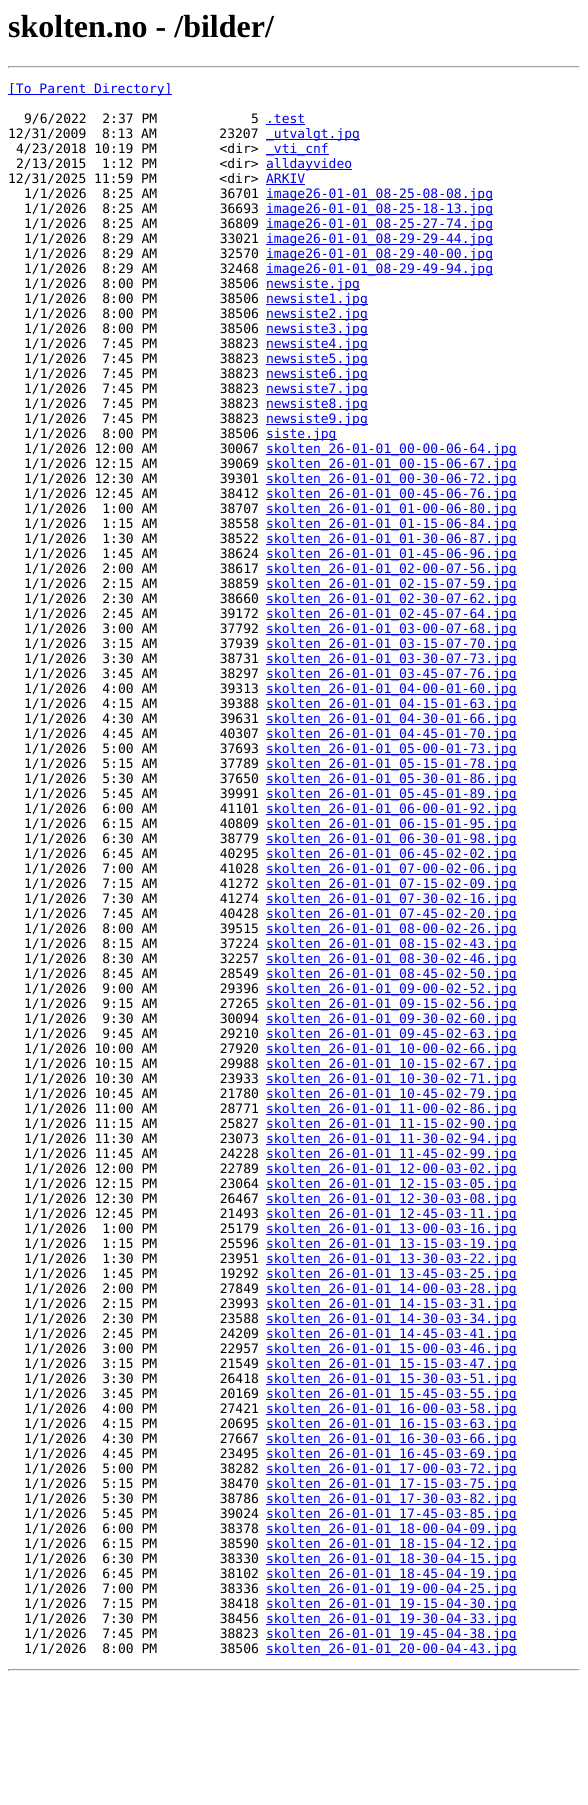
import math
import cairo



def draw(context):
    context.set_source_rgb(1, 1, 1)
    context.paint()
    context.set_source_rgb(159 / 255, 159 / 255, 159 / 255)
    context.rectangle(8, 66, 572, 1)
    context.fill()
    context.set_source_rgb(238 / 255, 238 / 255, 238 / 255)
    context.rectangle(579, 66, 1, 2)
    context.fill()
    context.rectangle(8, 67, 572, 1)
    context.fill()
    context.set_source_rgb(159 / 255, 159 / 255, 159 / 255)
    context.rectangle(8, 66, 1, 2)
    context.fill()
    context.set_source_rgb(0, 0, 238 / 255)
    context.rectangle(8, 94, 164, 1)
    context.fill()
    context.rectangle(266, 124, 39, 1)
    context.fill()
    context.rectangle(266, 139, 94, 1)
    context.fill()
    context.rectangle(266, 154, 63, 1)
    context.fill()
    context.rectangle(266, 169, 86, 1)
    context.fill()
    context.rectangle(266, 184, 39, 1)
    context.fill()
    context.rectangle(266, 199, 227, 1)
    context.fill()
    context.rectangle(266, 214, 227, 1)
    context.fill()
    context.rectangle(266, 229, 227, 1)
    context.fill()
    context.rectangle(266, 244, 227, 1)
    context.fill()
    context.rectangle(266, 259, 227, 1)
    context.fill()
    context.rectangle(266, 274, 227, 1)
    context.fill()
    context.rectangle(266, 289, 94, 1)
    context.fill()
    context.rectangle(266, 304, 102, 1)
    context.fill()
    context.rectangle(266, 319, 102, 1)
    context.fill()
    context.rectangle(266, 334, 102, 1)
    context.fill()
    context.rectangle(266, 349, 102, 1)
    context.fill()
    context.rectangle(266, 364, 102, 1)
    context.fill()
    context.rectangle(266, 379, 102, 1)
    context.fill()
    context.rectangle(266, 394, 102, 1)
    context.fill()
    context.rectangle(266, 409, 102, 1)
    context.fill()
    context.rectangle(266, 424, 102, 1)
    context.fill()
    context.rectangle(266, 439, 71, 1)
    context.fill()
    context.rectangle(266, 454, 251, 1)
    context.fill()
    context.rectangle(266, 469, 251, 1)
    context.fill()
    context.rectangle(266, 484, 251, 1)
    context.fill()
    context.rectangle(266, 499, 251, 1)
    context.fill()
    context.rectangle(266, 514, 251, 1)
    context.fill()
    context.rectangle(266, 529, 251, 1)
    context.fill()
    context.rectangle(266, 544, 251, 1)
    context.fill()
    context.rectangle(266, 559, 251, 1)
    context.fill()
    context.rectangle(266, 574, 251, 1)
    context.fill()
    context.rectangle(266, 589, 251, 1)
    context.fill()
    context.rectangle(266, 604, 251, 1)
    context.fill()
    context.rectangle(266, 619, 251, 1)
    context.fill()
    context.rectangle(266, 634, 251, 1)
    context.fill()
    context.rectangle(266, 649, 251, 1)
    context.fill()
    context.rectangle(266, 664, 251, 1)
    context.fill()
    context.rectangle(266, 679, 251, 1)
    context.fill()
    context.rectangle(266, 694, 251, 1)
    context.fill()
    context.rectangle(266, 709, 251, 1)
    context.fill()
    context.rectangle(266, 724, 251, 1)
    context.fill()
    context.rectangle(266, 739, 251, 1)
    context.fill()
    context.rectangle(266, 754, 251, 1)
    context.fill()
    context.rectangle(266, 769, 251, 1)
    context.fill()
    context.rectangle(266, 784, 251, 1)
    context.fill()
    context.rectangle(266, 799, 251, 1)
    context.fill()
    context.rectangle(266, 814, 251, 1)
    context.fill()
    context.rectangle(266, 829, 251, 1)
    context.fill()
    context.rectangle(266, 844, 251, 1)
    context.fill()
    context.rectangle(266, 859, 251, 1)
    context.fill()
    context.rectangle(266, 874, 251, 1)
    context.fill()
    context.rectangle(266, 889, 251, 1)
    context.fill()
    context.rectangle(266, 904, 251, 1)
    context.fill()
    context.rectangle(266, 919, 251, 1)
    context.fill()
    context.rectangle(266, 934, 251, 1)
    context.fill()
    context.rectangle(266, 949, 251, 1)
    context.fill()
    context.rectangle(266, 964, 251, 1)
    context.fill()
    context.rectangle(266, 979, 251, 1)
    context.fill()
    context.rectangle(266, 994, 251, 1)
    context.fill()
    context.rectangle(266, 1009, 251, 1)
    context.fill()
    context.rectangle(266, 1024, 251, 1)
    context.fill()
    context.rectangle(266, 1039, 251, 1)
    context.fill()
    context.rectangle(266, 1054, 251, 1)
    context.fill()
    context.rectangle(266, 1069, 251, 1)
    context.fill()
    context.rectangle(266, 1084, 251, 1)
    context.fill()
    context.rectangle(266, 1099, 251, 1)
    context.fill()
    context.rectangle(266, 1114, 251, 1)
    context.fill()
    context.rectangle(266, 1129, 251, 1)
    context.fill()
    context.rectangle(266, 1144, 251, 1)
    context.fill()
    context.rectangle(266, 1159, 251, 1)
    context.fill()
    context.rectangle(266, 1174, 251, 1)
    context.fill()
    context.rectangle(266, 1189, 251, 1)
    context.fill()
    context.rectangle(266, 1204, 251, 1)
    context.fill()
    context.rectangle(266, 1219, 251, 1)
    context.fill()
    context.rectangle(266, 1234, 251, 1)
    context.fill()
    context.rectangle(266, 1249, 251, 1)
    context.fill()
    context.rectangle(266, 1264, 251, 1)
    context.fill()
    context.rectangle(266, 1279, 251, 1)
    context.fill()
    context.rectangle(266, 1294, 251, 1)
    context.fill()
    context.rectangle(266, 1309, 251, 1)
    context.fill()
    context.rectangle(266, 1324, 251, 1)
    context.fill()
    context.rectangle(266, 1339, 251, 1)
    context.fill()
    context.rectangle(266, 1354, 251, 1)
    context.fill()
    context.rectangle(266, 1369, 251, 1)
    context.fill()
    context.rectangle(266, 1384, 251, 1)
    context.fill()
    context.rectangle(266, 1399, 251, 1)
    context.fill()
    context.rectangle(266, 1414, 251, 1)
    context.fill()
    context.rectangle(266, 1429, 251, 1)
    context.fill()
    context.rectangle(266, 1444, 251, 1)
    context.fill()
    context.rectangle(266, 1459, 251, 1)
    context.fill()
    context.rectangle(266, 1474, 251, 1)
    context.fill()
    context.rectangle(266, 1489, 251, 1)
    context.fill()
    context.rectangle(266, 1504, 251, 1)
    context.fill()
    context.rectangle(266, 1519, 251, 1)
    context.fill()
    context.rectangle(266, 1534, 251, 1)
    context.fill()
    context.rectangle(266, 1549, 251, 1)
    context.fill()
    context.rectangle(266, 1564, 251, 1)
    context.fill()
    context.rectangle(266, 1579, 251, 1)
    context.fill()
    context.rectangle(266, 1594, 251, 1)
    context.fill()
    context.rectangle(266, 1609, 251, 1)
    context.fill()
    context.rectangle(266, 1624, 251, 1)
    context.fill()
    context.rectangle(266, 1639, 251, 1)
    context.fill()
    context.rectangle(266, 1654, 251, 1)
    context.fill()
    context.set_source_rgb(159 / 255, 159 / 255, 159 / 255)
    context.rectangle(8, 1669, 572, 1)
    context.fill()
    context.set_source_rgb(238 / 255, 238 / 255, 238 / 255)
    context.rectangle(579, 1669, 1, 2)
    context.fill()
    context.rectangle(8, 1670, 572, 1)
    context.fill()
    context.set_source_rgb(159 / 255, 159 / 255, 159 / 255)
    context.rectangle(8, 1669, 1, 2)
    context.fill()
    context.select_font_face("Liberation Serif", cairo.FontSlant.NORMAL, cairo.FontWeight.BOLD)
    context.set_font_size(32)
    context.set_source_rgb(0, 0, 0)
    context.move_to(8, 37)
    context.show_text("skolten.no - /bilder/")
    context.select_font_face("DejaVu Sans Mono")
    context.set_font_size(13)
    context.set_source_rgb(0, 0, 238 / 255)
    context.move_to(8, 93)
    context.show_text("[To Parent Directory]")
    context.set_source_rgb(0, 0, 0)
    context.move_to(24, 123)
    context.show_text("9/6/2022  2:37 PM            5")
    context.set_source_rgb(0, 0, 238 / 255)
    context.move_to(266, 123)
    context.show_text(".test")
    context.set_source_rgb(0, 0, 0)
    context.move_to(8, 138)
    context.show_text("12/31/2009  8:13 AM        23207")
    context.set_source_rgb(0, 0, 238 / 255)
    context.move_to(266, 138)
    context.show_text("_utvalgt.jpg")
    context.set_source_rgb(0, 0, 0)
    context.move_to(16, 153)
    context.show_text("4/23/2018 10:19 PM        <dir>")
    context.set_source_rgb(0, 0, 238 / 255)
    context.move_to(266, 153)
    context.show_text("_vti_cnf")
    context.set_source_rgb(0, 0, 0)
    context.move_to(16, 168)
    context.show_text("2/13/2015  1:12 PM        <dir>")
    context.set_source_rgb(0, 0, 238 / 255)
    context.move_to(266, 168)
    context.show_text("alldayvideo")
    context.set_source_rgb(0, 0, 0)
    context.move_to(8, 183)
    context.show_text("12/31/2025 11:59 PM        <dir>")
    context.set_source_rgb(0, 0, 238 / 255)
    context.move_to(266, 183)
    context.show_text("ARKIV")
    context.set_source_rgb(0, 0, 0)
    context.move_to(24, 198)
    context.show_text("1/1/2026  8:25 AM        36701")
    context.set_source_rgb(0, 0, 238 / 255)
    context.move_to(266, 198)
    context.show_text("image26-01-01_08-25-08-08.jpg")
    context.set_source_rgb(0, 0, 0)
    context.move_to(24, 213)
    context.show_text("1/1/2026  8:25 AM        36693")
    context.set_source_rgb(0, 0, 238 / 255)
    context.move_to(266, 213)
    context.show_text("image26-01-01_08-25-18-13.jpg")
    context.set_source_rgb(0, 0, 0)
    context.move_to(24, 228)
    context.show_text("1/1/2026  8:25 AM        36809")
    context.set_source_rgb(0, 0, 238 / 255)
    context.move_to(266, 228)
    context.show_text("image26-01-01_08-25-27-74.jpg")
    context.set_source_rgb(0, 0, 0)
    context.move_to(24, 243)
    context.show_text("1/1/2026  8:29 AM        33021")
    context.set_source_rgb(0, 0, 238 / 255)
    context.move_to(266, 243)
    context.show_text("image26-01-01_08-29-29-44.jpg")
    context.set_source_rgb(0, 0, 0)
    context.move_to(24, 258)
    context.show_text("1/1/2026  8:29 AM        32570")
    context.set_source_rgb(0, 0, 238 / 255)
    context.move_to(266, 258)
    context.show_text("image26-01-01_08-29-40-00.jpg")
    context.set_source_rgb(0, 0, 0)
    context.move_to(24, 273)
    context.show_text("1/1/2026  8:29 AM        32468")
    context.set_source_rgb(0, 0, 238 / 255)
    context.move_to(266, 273)
    context.show_text("image26-01-01_08-29-49-94.jpg")
    context.set_source_rgb(0, 0, 0)
    context.move_to(24, 288)
    context.show_text("1/1/2026  8:00 PM        38506")
    context.set_source_rgb(0, 0, 238 / 255)
    context.move_to(266, 288)
    context.show_text("newsiste.jpg")
    context.set_source_rgb(0, 0, 0)
    context.move_to(24, 303)
    context.show_text("1/1/2026  8:00 PM        38506")
    context.set_source_rgb(0, 0, 238 / 255)
    context.move_to(266, 303)
    context.show_text("newsiste1.jpg")
    context.set_source_rgb(0, 0, 0)
    context.move_to(24, 318)
    context.show_text("1/1/2026  8:00 PM        38506")
    context.set_source_rgb(0, 0, 238 / 255)
    context.move_to(266, 318)
    context.show_text("newsiste2.jpg")
    context.set_source_rgb(0, 0, 0)
    context.move_to(24, 333)
    context.show_text("1/1/2026  8:00 PM        38506")
    context.set_source_rgb(0, 0, 238 / 255)
    context.move_to(266, 333)
    context.show_text("newsiste3.jpg")
    context.set_source_rgb(0, 0, 0)
    context.move_to(24, 348)
    context.show_text("1/1/2026  7:45 PM        38823")
    context.set_source_rgb(0, 0, 238 / 255)
    context.move_to(266, 348)
    context.show_text("newsiste4.jpg")
    context.set_source_rgb(0, 0, 0)
    context.move_to(24, 363)
    context.show_text("1/1/2026  7:45 PM        38823")
    context.set_source_rgb(0, 0, 238 / 255)
    context.move_to(266, 363)
    context.show_text("newsiste5.jpg")
    context.set_source_rgb(0, 0, 0)
    context.move_to(24, 378)
    context.show_text("1/1/2026  7:45 PM        38823")
    context.set_source_rgb(0, 0, 238 / 255)
    context.move_to(266, 378)
    context.show_text("newsiste6.jpg")
    context.set_source_rgb(0, 0, 0)
    context.move_to(24, 393)
    context.show_text("1/1/2026  7:45 PM        38823")
    context.set_source_rgb(0, 0, 238 / 255)
    context.move_to(266, 393)
    context.show_text("newsiste7.jpg")
    context.set_source_rgb(0, 0, 0)
    context.move_to(24, 408)
    context.show_text("1/1/2026  7:45 PM        38823")
    context.set_source_rgb(0, 0, 238 / 255)
    context.move_to(266, 408)
    context.show_text("newsiste8.jpg")
    context.set_source_rgb(0, 0, 0)
    context.move_to(24, 423)
    context.show_text("1/1/2026  7:45 PM        38823")
    context.set_source_rgb(0, 0, 238 / 255)
    context.move_to(266, 423)
    context.show_text("newsiste9.jpg")
    context.set_source_rgb(0, 0, 0)
    context.move_to(24, 438)
    context.show_text("1/1/2026  8:00 PM        38506")
    context.set_source_rgb(0, 0, 238 / 255)
    context.move_to(266, 438)
    context.show_text("siste.jpg")
    context.set_source_rgb(0, 0, 0)
    context.move_to(24, 453)
    context.show_text("1/1/2026 12:00 AM        30067")
    context.set_source_rgb(0, 0, 238 / 255)
    context.move_to(266, 453)
    context.show_text("skolten_26-01-01_00-00-06-64.jpg")
    context.set_source_rgb(0, 0, 0)
    context.move_to(24, 468)
    context.show_text("1/1/2026 12:15 AM        39069")
    context.set_source_rgb(0, 0, 238 / 255)
    context.move_to(266, 468)
    context.show_text("skolten_26-01-01_00-15-06-67.jpg")
    context.set_source_rgb(0, 0, 0)
    context.move_to(24, 483)
    context.show_text("1/1/2026 12:30 AM        39301")
    context.set_source_rgb(0, 0, 238 / 255)
    context.move_to(266, 483)
    context.show_text("skolten_26-01-01_00-30-06-72.jpg")
    context.set_source_rgb(0, 0, 0)
    context.move_to(24, 498)
    context.show_text("1/1/2026 12:45 AM        38412")
    context.set_source_rgb(0, 0, 238 / 255)
    context.move_to(266, 498)
    context.show_text("skolten_26-01-01_00-45-06-76.jpg")
    context.set_source_rgb(0, 0, 0)
    context.move_to(24, 513)
    context.show_text("1/1/2026  1:00 AM        38707")
    context.set_source_rgb(0, 0, 238 / 255)
    context.move_to(266, 513)
    context.show_text("skolten_26-01-01_01-00-06-80.jpg")
    context.set_source_rgb(0, 0, 0)
    context.move_to(24, 528)
    context.show_text("1/1/2026  1:15 AM        38558")
    context.set_source_rgb(0, 0, 238 / 255)
    context.move_to(266, 528)
    context.show_text("skolten_26-01-01_01-15-06-84.jpg")
    context.set_source_rgb(0, 0, 0)
    context.move_to(24, 543)
    context.show_text("1/1/2026  1:30 AM        38522")
    context.set_source_rgb(0, 0, 238 / 255)
    context.move_to(266, 543)
    context.show_text("skolten_26-01-01_01-30-06-87.jpg")
    context.set_source_rgb(0, 0, 0)
    context.move_to(24, 558)
    context.show_text("1/1/2026  1:45 AM        38624")
    context.set_source_rgb(0, 0, 238 / 255)
    context.move_to(266, 558)
    context.show_text("skolten_26-01-01_01-45-06-96.jpg")
    context.set_source_rgb(0, 0, 0)
    context.move_to(24, 573)
    context.show_text("1/1/2026  2:00 AM        38617")
    context.set_source_rgb(0, 0, 238 / 255)
    context.move_to(266, 573)
    context.show_text("skolten_26-01-01_02-00-07-56.jpg")
    context.set_source_rgb(0, 0, 0)
    context.move_to(24, 588)
    context.show_text("1/1/2026  2:15 AM        38859")
    context.set_source_rgb(0, 0, 238 / 255)
    context.move_to(266, 588)
    context.show_text("skolten_26-01-01_02-15-07-59.jpg")
    context.set_source_rgb(0, 0, 0)
    context.move_to(24, 603)
    context.show_text("1/1/2026  2:30 AM        38660")
    context.set_source_rgb(0, 0, 238 / 255)
    context.move_to(266, 603)
    context.show_text("skolten_26-01-01_02-30-07-62.jpg")
    context.set_source_rgb(0, 0, 0)
    context.move_to(24, 618)
    context.show_text("1/1/2026  2:45 AM        39172")
    context.set_source_rgb(0, 0, 238 / 255)
    context.move_to(266, 618)
    context.show_text("skolten_26-01-01_02-45-07-64.jpg")
    context.set_source_rgb(0, 0, 0)
    context.move_to(24, 633)
    context.show_text("1/1/2026  3:00 AM        37792")
    context.set_source_rgb(0, 0, 238 / 255)
    context.move_to(266, 633)
    context.show_text("skolten_26-01-01_03-00-07-68.jpg")
    context.set_source_rgb(0, 0, 0)
    context.move_to(24, 648)
    context.show_text("1/1/2026  3:15 AM        37939")
    context.set_source_rgb(0, 0, 238 / 255)
    context.move_to(266, 648)
    context.show_text("skolten_26-01-01_03-15-07-70.jpg")
    context.set_source_rgb(0, 0, 0)
    context.move_to(24, 663)
    context.show_text("1/1/2026  3:30 AM        38731")
    context.set_source_rgb(0, 0, 238 / 255)
    context.move_to(266, 663)
    context.show_text("skolten_26-01-01_03-30-07-73.jpg")
    context.set_source_rgb(0, 0, 0)
    context.move_to(24, 678)
    context.show_text("1/1/2026  3:45 AM        38297")
    context.set_source_rgb(0, 0, 238 / 255)
    context.move_to(266, 678)
    context.show_text("skolten_26-01-01_03-45-07-76.jpg")
    context.set_source_rgb(0, 0, 0)
    context.move_to(24, 693)
    context.show_text("1/1/2026  4:00 AM        39313")
    context.set_source_rgb(0, 0, 238 / 255)
    context.move_to(266, 693)
    context.show_text("skolten_26-01-01_04-00-01-60.jpg")
    context.set_source_rgb(0, 0, 0)
    context.move_to(24, 708)
    context.show_text("1/1/2026  4:15 AM        39388")
    context.set_source_rgb(0, 0, 238 / 255)
    context.move_to(266, 708)
    context.show_text("skolten_26-01-01_04-15-01-63.jpg")
    context.set_source_rgb(0, 0, 0)
    context.move_to(24, 723)
    context.show_text("1/1/2026  4:30 AM        39631")
    context.set_source_rgb(0, 0, 238 / 255)
    context.move_to(266, 723)
    context.show_text("skolten_26-01-01_04-30-01-66.jpg")
    context.set_source_rgb(0, 0, 0)
    context.move_to(24, 738)
    context.show_text("1/1/2026  4:45 AM        40307")
    context.set_source_rgb(0, 0, 238 / 255)
    context.move_to(266, 738)
    context.show_text("skolten_26-01-01_04-45-01-70.jpg")
    context.set_source_rgb(0, 0, 0)
    context.move_to(24, 753)
    context.show_text("1/1/2026  5:00 AM        37693")
    context.set_source_rgb(0, 0, 238 / 255)
    context.move_to(266, 753)
    context.show_text("skolten_26-01-01_05-00-01-73.jpg")
    context.set_source_rgb(0, 0, 0)
    context.move_to(24, 768)
    context.show_text("1/1/2026  5:15 AM        37789")
    context.set_source_rgb(0, 0, 238 / 255)
    context.move_to(266, 768)
    context.show_text("skolten_26-01-01_05-15-01-78.jpg")
    context.set_source_rgb(0, 0, 0)
    context.move_to(24, 783)
    context.show_text("1/1/2026  5:30 AM        37650")
    context.set_source_rgb(0, 0, 238 / 255)
    context.move_to(266, 783)
    context.show_text("skolten_26-01-01_05-30-01-86.jpg")
    context.set_source_rgb(0, 0, 0)
    context.move_to(24, 798)
    context.show_text("1/1/2026  5:45 AM        39991")
    context.set_source_rgb(0, 0, 238 / 255)
    context.move_to(266, 798)
    context.show_text("skolten_26-01-01_05-45-01-89.jpg")
    context.set_source_rgb(0, 0, 0)
    context.move_to(24, 813)
    context.show_text("1/1/2026  6:00 AM        41101")
    context.set_source_rgb(0, 0, 238 / 255)
    context.move_to(266, 813)
    context.show_text("skolten_26-01-01_06-00-01-92.jpg")
    context.set_source_rgb(0, 0, 0)
    context.move_to(24, 828)
    context.show_text("1/1/2026  6:15 AM        40809")
    context.set_source_rgb(0, 0, 238 / 255)
    context.move_to(266, 828)
    context.show_text("skolten_26-01-01_06-15-01-95.jpg")
    context.set_source_rgb(0, 0, 0)
    context.move_to(24, 843)
    context.show_text("1/1/2026  6:30 AM        38779")
    context.set_source_rgb(0, 0, 238 / 255)
    context.move_to(266, 843)
    context.show_text("skolten_26-01-01_06-30-01-98.jpg")
    context.set_source_rgb(0, 0, 0)
    context.move_to(24, 858)
    context.show_text("1/1/2026  6:45 AM        40295")
    context.set_source_rgb(0, 0, 238 / 255)
    context.move_to(266, 858)
    context.show_text("skolten_26-01-01_06-45-02-02.jpg")
    context.set_source_rgb(0, 0, 0)
    context.move_to(24, 873)
    context.show_text("1/1/2026  7:00 AM        41028")
    context.set_source_rgb(0, 0, 238 / 255)
    context.move_to(266, 873)
    context.show_text("skolten_26-01-01_07-00-02-06.jpg")
    context.set_source_rgb(0, 0, 0)
    context.move_to(24, 888)
    context.show_text("1/1/2026  7:15 AM        41272")
    context.set_source_rgb(0, 0, 238 / 255)
    context.move_to(266, 888)
    context.show_text("skolten_26-01-01_07-15-02-09.jpg")
    context.set_source_rgb(0, 0, 0)
    context.move_to(24, 903)
    context.show_text("1/1/2026  7:30 AM        41274")
    context.set_source_rgb(0, 0, 238 / 255)
    context.move_to(266, 903)
    context.show_text("skolten_26-01-01_07-30-02-16.jpg")
    context.set_source_rgb(0, 0, 0)
    context.move_to(24, 918)
    context.show_text("1/1/2026  7:45 AM        40428")
    context.set_source_rgb(0, 0, 238 / 255)
    context.move_to(266, 918)
    context.show_text("skolten_26-01-01_07-45-02-20.jpg")
    context.set_source_rgb(0, 0, 0)
    context.move_to(24, 933)
    context.show_text("1/1/2026  8:00 AM        39515")
    context.set_source_rgb(0, 0, 238 / 255)
    context.move_to(266, 933)
    context.show_text("skolten_26-01-01_08-00-02-26.jpg")
    context.set_source_rgb(0, 0, 0)
    context.move_to(24, 948)
    context.show_text("1/1/2026  8:15 AM        37224")
    context.set_source_rgb(0, 0, 238 / 255)
    context.move_to(266, 948)
    context.show_text("skolten_26-01-01_08-15-02-43.jpg")
    context.set_source_rgb(0, 0, 0)
    context.move_to(24, 963)
    context.show_text("1/1/2026  8:30 AM        32257")
    context.set_source_rgb(0, 0, 238 / 255)
    context.move_to(266, 963)
    context.show_text("skolten_26-01-01_08-30-02-46.jpg")
    context.set_source_rgb(0, 0, 0)
    context.move_to(24, 978)
    context.show_text("1/1/2026  8:45 AM        28549")
    context.set_source_rgb(0, 0, 238 / 255)
    context.move_to(266, 978)
    context.show_text("skolten_26-01-01_08-45-02-50.jpg")
    context.set_source_rgb(0, 0, 0)
    context.move_to(24, 993)
    context.show_text("1/1/2026  9:00 AM        29396")
    context.set_source_rgb(0, 0, 238 / 255)
    context.move_to(266, 993)
    context.show_text("skolten_26-01-01_09-00-02-52.jpg")
    context.set_source_rgb(0, 0, 0)
    context.move_to(24, 1008)
    context.show_text("1/1/2026  9:15 AM        27265")
    context.set_source_rgb(0, 0, 238 / 255)
    context.move_to(266, 1008)
    context.show_text("skolten_26-01-01_09-15-02-56.jpg")
    context.set_source_rgb(0, 0, 0)
    context.move_to(24, 1023)
    context.show_text("1/1/2026  9:30 AM        30094")
    context.set_source_rgb(0, 0, 238 / 255)
    context.move_to(266, 1023)
    context.show_text("skolten_26-01-01_09-30-02-60.jpg")
    context.set_source_rgb(0, 0, 0)
    context.move_to(24, 1038)
    context.show_text("1/1/2026  9:45 AM        29210")
    context.set_source_rgb(0, 0, 238 / 255)
    context.move_to(266, 1038)
    context.show_text("skolten_26-01-01_09-45-02-63.jpg")
    context.set_source_rgb(0, 0, 0)
    context.move_to(24, 1053)
    context.show_text("1/1/2026 10:00 AM        27920")
    context.set_source_rgb(0, 0, 238 / 255)
    context.move_to(266, 1053)
    context.show_text("skolten_26-01-01_10-00-02-66.jpg")
    context.set_source_rgb(0, 0, 0)
    context.move_to(24, 1068)
    context.show_text("1/1/2026 10:15 AM        29988")
    context.set_source_rgb(0, 0, 238 / 255)
    context.move_to(266, 1068)
    context.show_text("skolten_26-01-01_10-15-02-67.jpg")
    context.set_source_rgb(0, 0, 0)
    context.move_to(24, 1083)
    context.show_text("1/1/2026 10:30 AM        23933")
    context.set_source_rgb(0, 0, 238 / 255)
    context.move_to(266, 1083)
    context.show_text("skolten_26-01-01_10-30-02-71.jpg")
    context.set_source_rgb(0, 0, 0)
    context.move_to(24, 1098)
    context.show_text("1/1/2026 10:45 AM        21780")
    context.set_source_rgb(0, 0, 238 / 255)
    context.move_to(266, 1098)
    context.show_text("skolten_26-01-01_10-45-02-79.jpg")
    context.set_source_rgb(0, 0, 0)
    context.move_to(24, 1113)
    context.show_text("1/1/2026 11:00 AM        28771")
    context.set_source_rgb(0, 0, 238 / 255)
    context.move_to(266, 1113)
    context.show_text("skolten_26-01-01_11-00-02-86.jpg")
    context.set_source_rgb(0, 0, 0)
    context.move_to(24, 1128)
    context.show_text("1/1/2026 11:15 AM        25827")
    context.set_source_rgb(0, 0, 238 / 255)
    context.move_to(266, 1128)
    context.show_text("skolten_26-01-01_11-15-02-90.jpg")
    context.set_source_rgb(0, 0, 0)
    context.move_to(24, 1143)
    context.show_text("1/1/2026 11:30 AM        23073")
    context.set_source_rgb(0, 0, 238 / 255)
    context.move_to(266, 1143)
    context.show_text("skolten_26-01-01_11-30-02-94.jpg")
    context.set_source_rgb(0, 0, 0)
    context.move_to(24, 1158)
    context.show_text("1/1/2026 11:45 AM        24228")
    context.set_source_rgb(0, 0, 238 / 255)
    context.move_to(266, 1158)
    context.show_text("skolten_26-01-01_11-45-02-99.jpg")
    context.set_source_rgb(0, 0, 0)
    context.move_to(24, 1173)
    context.show_text("1/1/2026 12:00 PM        22789")
    context.set_source_rgb(0, 0, 238 / 255)
    context.move_to(266, 1173)
    context.show_text("skolten_26-01-01_12-00-03-02.jpg")
    context.set_source_rgb(0, 0, 0)
    context.move_to(24, 1188)
    context.show_text("1/1/2026 12:15 PM        23064")
    context.set_source_rgb(0, 0, 238 / 255)
    context.move_to(266, 1188)
    context.show_text("skolten_26-01-01_12-15-03-05.jpg")
    context.set_source_rgb(0, 0, 0)
    context.move_to(24, 1203)
    context.show_text("1/1/2026 12:30 PM        26467")
    context.set_source_rgb(0, 0, 238 / 255)
    context.move_to(266, 1203)
    context.show_text("skolten_26-01-01_12-30-03-08.jpg")
    context.set_source_rgb(0, 0, 0)
    context.move_to(24, 1218)
    context.show_text("1/1/2026 12:45 PM        21493")
    context.set_source_rgb(0, 0, 238 / 255)
    context.move_to(266, 1218)
    context.show_text("skolten_26-01-01_12-45-03-11.jpg")
    context.set_source_rgb(0, 0, 0)
    context.move_to(24, 1233)
    context.show_text("1/1/2026  1:00 PM        25179")
    context.set_source_rgb(0, 0, 238 / 255)
    context.move_to(266, 1233)
    context.show_text("skolten_26-01-01_13-00-03-16.jpg")
    context.set_source_rgb(0, 0, 0)
    context.move_to(24, 1248)
    context.show_text("1/1/2026  1:15 PM        25596")
    context.set_source_rgb(0, 0, 238 / 255)
    context.move_to(266, 1248)
    context.show_text("skolten_26-01-01_13-15-03-19.jpg")
    context.set_source_rgb(0, 0, 0)
    context.move_to(24, 1263)
    context.show_text("1/1/2026  1:30 PM        23951")
    context.set_source_rgb(0, 0, 238 / 255)
    context.move_to(266, 1263)
    context.show_text("skolten_26-01-01_13-30-03-22.jpg")
    context.set_source_rgb(0, 0, 0)
    context.move_to(24, 1278)
    context.show_text("1/1/2026  1:45 PM        19292")
    context.set_source_rgb(0, 0, 238 / 255)
    context.move_to(266, 1278)
    context.show_text("skolten_26-01-01_13-45-03-25.jpg")
    context.set_source_rgb(0, 0, 0)
    context.move_to(24, 1293)
    context.show_text("1/1/2026  2:00 PM        27849")
    context.set_source_rgb(0, 0, 238 / 255)
    context.move_to(266, 1293)
    context.show_text("skolten_26-01-01_14-00-03-28.jpg")
    context.set_source_rgb(0, 0, 0)
    context.move_to(24, 1308)
    context.show_text("1/1/2026  2:15 PM        23993")
    context.set_source_rgb(0, 0, 238 / 255)
    context.move_to(266, 1308)
    context.show_text("skolten_26-01-01_14-15-03-31.jpg")
    context.set_source_rgb(0, 0, 0)
    context.move_to(24, 1323)
    context.show_text("1/1/2026  2:30 PM        23588")
    context.set_source_rgb(0, 0, 238 / 255)
    context.move_to(266, 1323)
    context.show_text("skolten_26-01-01_14-30-03-34.jpg")
    context.set_source_rgb(0, 0, 0)
    context.move_to(24, 1338)
    context.show_text("1/1/2026  2:45 PM        24209")
    context.set_source_rgb(0, 0, 238 / 255)
    context.move_to(266, 1338)
    context.show_text("skolten_26-01-01_14-45-03-41.jpg")
    context.set_source_rgb(0, 0, 0)
    context.move_to(24, 1353)
    context.show_text("1/1/2026  3:00 PM        22957")
    context.set_source_rgb(0, 0, 238 / 255)
    context.move_to(266, 1353)
    context.show_text("skolten_26-01-01_15-00-03-46.jpg")
    context.set_source_rgb(0, 0, 0)
    context.move_to(24, 1368)
    context.show_text("1/1/2026  3:15 PM        21549")
    context.set_source_rgb(0, 0, 238 / 255)
    context.move_to(266, 1368)
    context.show_text("skolten_26-01-01_15-15-03-47.jpg")
    context.set_source_rgb(0, 0, 0)
    context.move_to(24, 1383)
    context.show_text("1/1/2026  3:30 PM        26418")
    context.set_source_rgb(0, 0, 238 / 255)
    context.move_to(266, 1383)
    context.show_text("skolten_26-01-01_15-30-03-51.jpg")
    context.set_source_rgb(0, 0, 0)
    context.move_to(24, 1398)
    context.show_text("1/1/2026  3:45 PM        20169")
    context.set_source_rgb(0, 0, 238 / 255)
    context.move_to(266, 1398)
    context.show_text("skolten_26-01-01_15-45-03-55.jpg")
    context.set_source_rgb(0, 0, 0)
    context.move_to(24, 1413)
    context.show_text("1/1/2026  4:00 PM        27421")
    context.set_source_rgb(0, 0, 238 / 255)
    context.move_to(266, 1413)
    context.show_text("skolten_26-01-01_16-00-03-58.jpg")
    context.set_source_rgb(0, 0, 0)
    context.move_to(24, 1428)
    context.show_text("1/1/2026  4:15 PM        20695")
    context.set_source_rgb(0, 0, 238 / 255)
    context.move_to(266, 1428)
    context.show_text("skolten_26-01-01_16-15-03-63.jpg")
    context.set_source_rgb(0, 0, 0)
    context.move_to(24, 1443)
    context.show_text("1/1/2026  4:30 PM        27667")
    context.set_source_rgb(0, 0, 238 / 255)
    context.move_to(266, 1443)
    context.show_text("skolten_26-01-01_16-30-03-66.jpg")
    context.set_source_rgb(0, 0, 0)
    context.move_to(24, 1458)
    context.show_text("1/1/2026  4:45 PM        23495")
    context.set_source_rgb(0, 0, 238 / 255)
    context.move_to(266, 1458)
    context.show_text("skolten_26-01-01_16-45-03-69.jpg")
    context.set_source_rgb(0, 0, 0)
    context.move_to(24, 1473)
    context.show_text("1/1/2026  5:00 PM        38282")
    context.set_source_rgb(0, 0, 238 / 255)
    context.move_to(266, 1473)
    context.show_text("skolten_26-01-01_17-00-03-72.jpg")
    context.set_source_rgb(0, 0, 0)
    context.move_to(24, 1488)
    context.show_text("1/1/2026  5:15 PM        38470")
    context.set_source_rgb(0, 0, 238 / 255)
    context.move_to(266, 1488)
    context.show_text("skolten_26-01-01_17-15-03-75.jpg")
    context.set_source_rgb(0, 0, 0)
    context.move_to(24, 1503)
    context.show_text("1/1/2026  5:30 PM        38786")
    context.set_source_rgb(0, 0, 238 / 255)
    context.move_to(266, 1503)
    context.show_text("skolten_26-01-01_17-30-03-82.jpg")
    context.set_source_rgb(0, 0, 0)
    context.move_to(24, 1518)
    context.show_text("1/1/2026  5:45 PM        39024")
    context.set_source_rgb(0, 0, 238 / 255)
    context.move_to(266, 1518)
    context.show_text("skolten_26-01-01_17-45-03-85.jpg")
    context.set_source_rgb(0, 0, 0)
    context.move_to(24, 1533)
    context.show_text("1/1/2026  6:00 PM        38378")
    context.set_source_rgb(0, 0, 238 / 255)
    context.move_to(266, 1533)
    context.show_text("skolten_26-01-01_18-00-04-09.jpg")
    context.set_source_rgb(0, 0, 0)
    context.move_to(24, 1548)
    context.show_text("1/1/2026  6:15 PM        38590")
    context.set_source_rgb(0, 0, 238 / 255)
    context.move_to(266, 1548)
    context.show_text("skolten_26-01-01_18-15-04-12.jpg")
    context.set_source_rgb(0, 0, 0)
    context.move_to(24, 1563)
    context.show_text("1/1/2026  6:30 PM        38330")
    context.set_source_rgb(0, 0, 238 / 255)
    context.move_to(266, 1563)
    context.show_text("skolten_26-01-01_18-30-04-15.jpg")
    context.set_source_rgb(0, 0, 0)
    context.move_to(24, 1578)
    context.show_text("1/1/2026  6:45 PM        38102")
    context.set_source_rgb(0, 0, 238 / 255)
    context.move_to(266, 1578)
    context.show_text("skolten_26-01-01_18-45-04-19.jpg")
    context.set_source_rgb(0, 0, 0)
    context.move_to(24, 1593)
    context.show_text("1/1/2026  7:00 PM        38336")
    context.set_source_rgb(0, 0, 238 / 255)
    context.move_to(266, 1593)
    context.show_text("skolten_26-01-01_19-00-04-25.jpg")
    context.set_source_rgb(0, 0, 0)
    context.move_to(24, 1608)
    context.show_text("1/1/2026  7:15 PM        38418")
    context.set_source_rgb(0, 0, 238 / 255)
    context.move_to(266, 1608)
    context.show_text("skolten_26-01-01_19-15-04-30.jpg")
    context.set_source_rgb(0, 0, 0)
    context.move_to(24, 1623)
    context.show_text("1/1/2026  7:30 PM        38456")
    context.set_source_rgb(0, 0, 238 / 255)
    context.move_to(266, 1623)
    context.show_text("skolten_26-01-01_19-30-04-33.jpg")
    context.set_source_rgb(0, 0, 0)
    context.move_to(24, 1638)
    context.show_text("1/1/2026  7:45 PM        38823")
    context.set_source_rgb(0, 0, 238 / 255)
    context.move_to(266, 1638)
    context.show_text("skolten_26-01-01_19-45-04-38.jpg")
    context.set_source_rgb(0, 0, 0)
    context.move_to(24, 1653)
    context.show_text("1/1/2026  8:00 PM        38506")
    context.set_source_rgb(0, 0, 238 / 255)
    context.move_to(266, 1653)
    context.show_text("skolten_26-01-01_20-00-04-43.jpg")


surface = cairo.ImageSurface(cairo.Format.RGB24, 588, 1805)
context = cairo.Context(surface)
options = cairo.FontOptions()
options.set_hint_metrics(cairo.HintMetrics.OFF)
options.set_hint_style(cairo.HintStyle.NONE)
context.set_font_options(options)
context.set_miter_limit(4)
draw(context)
surface.write_to_png("out.png")
